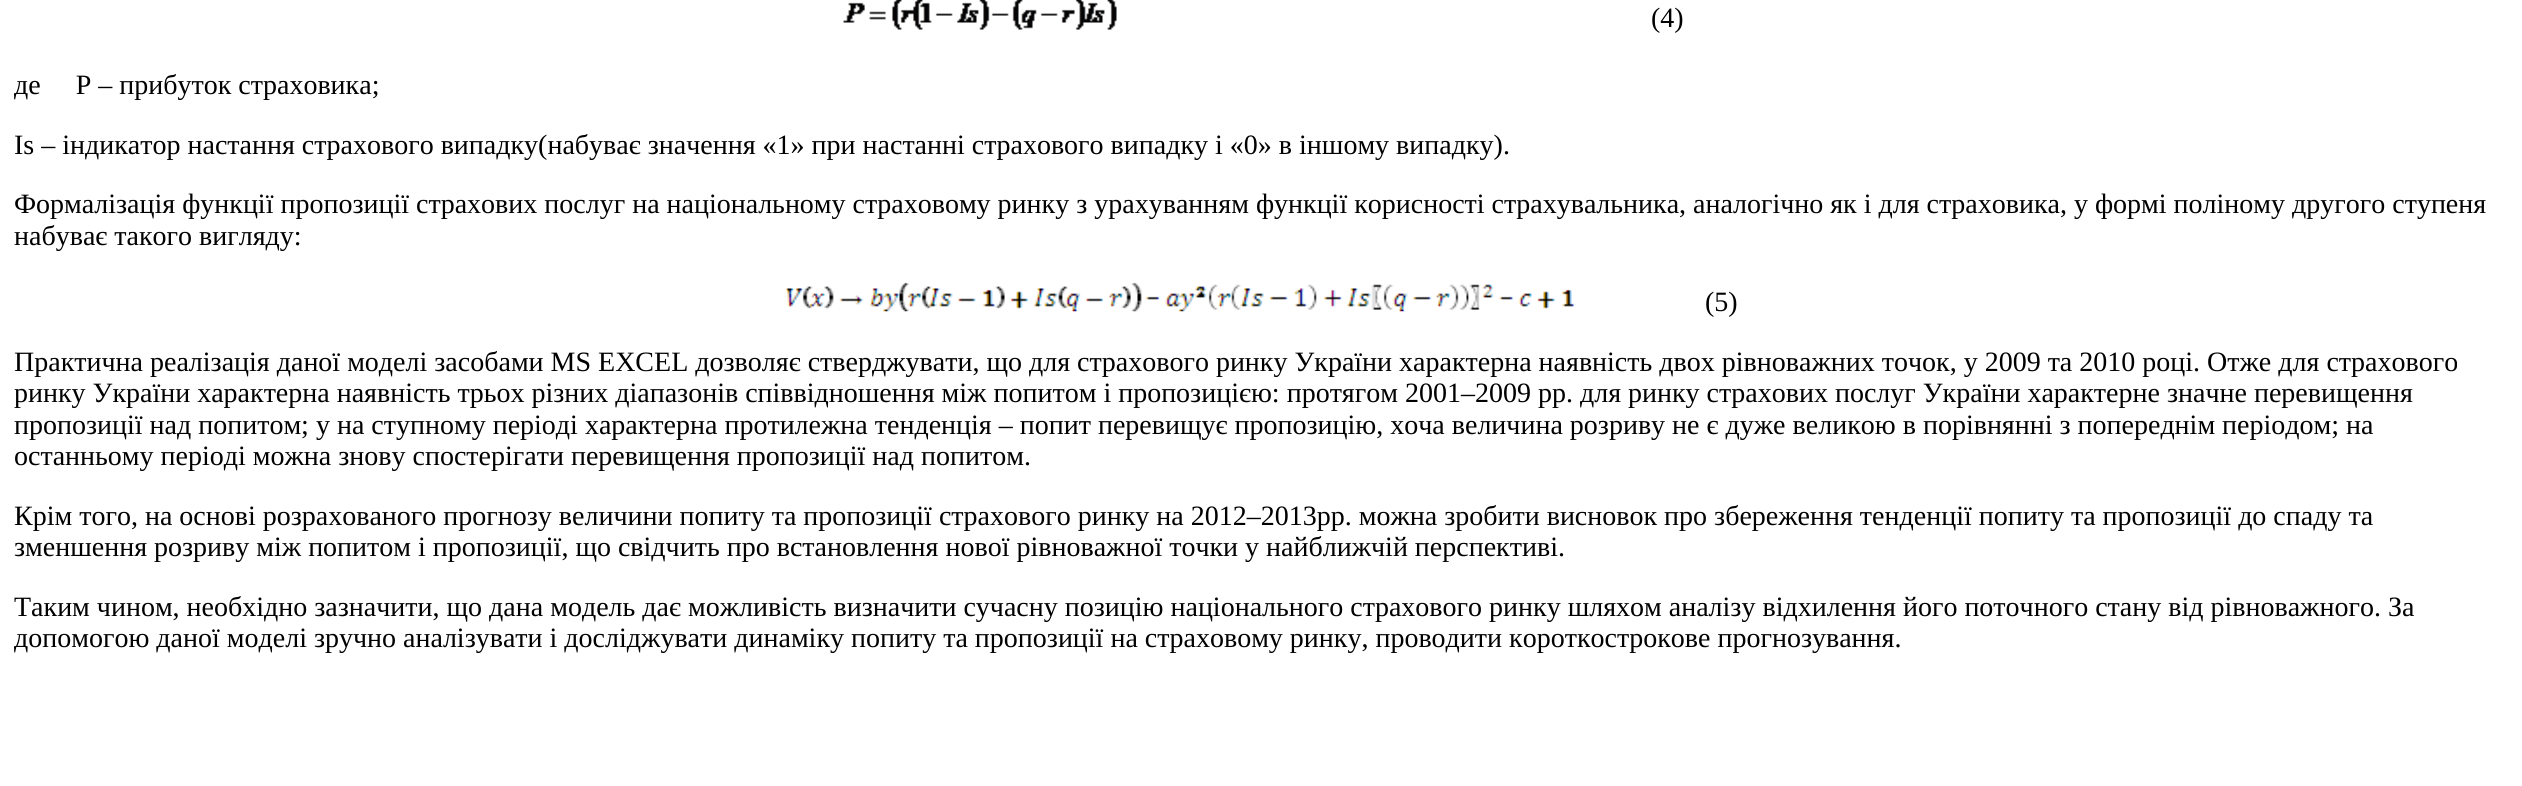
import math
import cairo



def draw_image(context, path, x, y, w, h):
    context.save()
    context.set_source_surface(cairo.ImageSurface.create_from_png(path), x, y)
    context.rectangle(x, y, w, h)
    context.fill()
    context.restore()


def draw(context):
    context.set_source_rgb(1, 1, 1)
    context.paint()
    draw_image(context, "images/1.png", 843, 0, 274, 30)
    draw_image(context, "images/2.png", 785, 282, 791, 30)
    context.select_font_face("Liberation Serif")
    context.set_font_size(28)
    context.set_source_rgb(0, 0, 0)
    context.move_to(1651, 27)
    context.show_text("(4)")
    context.move_to(14, 94)
    context.show_text("де     P – прибуток страховика;")
    context.move_to(14, 154)
    context.show_text("Is – індикатор настання страхового випадку(набуває значення «1» при настанні страхового випадку і «0» в іншому випадку).")
    context.move_to(14, 213)
    context.show_text("Формалізація функції пропозиції страхових послуг на національному страховому ринку з урахуванням функції корисності страхувальника, аналогічно як і для страховика, у формі поліному другого ступеня")
    context.move_to(14, 245)
    context.show_text("набуває такого вигляду:")
    context.move_to(1705, 311)
    context.show_text("(5)")
    context.move_to(14, 371)
    context.show_text("Практична реалізація даної моделі засобами MS EXCEL дозволяє стверджувати, що для страхового ринку України характерна наявність двох рівноважних точок, у 2009 та 2010 році. Отже для страхового")
    context.move_to(14, 402)
    context.show_text("ринку України характерна наявність трьох різних діапазонів співвідношення між попитом і пропозицією: протягом 2001–2009 рр. для ринку страхових послуг України характерне значне перевищення")
    context.move_to(14, 434)
    context.show_text("пропозиції над попитом; у на ступному періоді характерна протилежна тенденція – попит перевищує пропозицію, хоча величина розриву не є дуже великою в порівнянні з попереднім періодом; на")
    context.move_to(14, 465)
    context.show_text("останньому періоді можна знову спостерігати перевищення пропозиції над попитом.")
    context.move_to(14, 525)
    context.show_text("Крім того, на основі розрахованого прогнозу величини попиту та пропозиції страхового ринку на 2012–2013рр. можна зробити висновок про збереження тенденції попиту та пропозиції до спаду та")
    context.move_to(14, 556)
    context.show_text("зменшення розриву між попитом і пропозиції, що свідчить про встановлення нової рівноважної точки у найближчій перспективі.")
    context.move_to(14, 616)
    context.show_text("Таким чином, необхідно зазначити, що дана модель дає можливість визначити сучасну позицію національного страхового ринку шляхом аналізу відхилення його поточного стану від рівноважного. За")
    context.move_to(14, 647)
    context.show_text("допомогою даної моделі зручно аналізувати і досліджувати динаміку попиту та пропозиції на страховому ринку, проводити короткострокове прогнозування.")


surface = cairo.ImageSurface(cairo.Format.RGB24, 2522, 786)
context = cairo.Context(surface)
options = cairo.FontOptions()
options.set_hint_metrics(cairo.HintMetrics.OFF)
options.set_hint_style(cairo.HintStyle.NONE)
context.set_font_options(options)
context.set_miter_limit(4)
draw(context)
surface.write_to_png("out.png")
